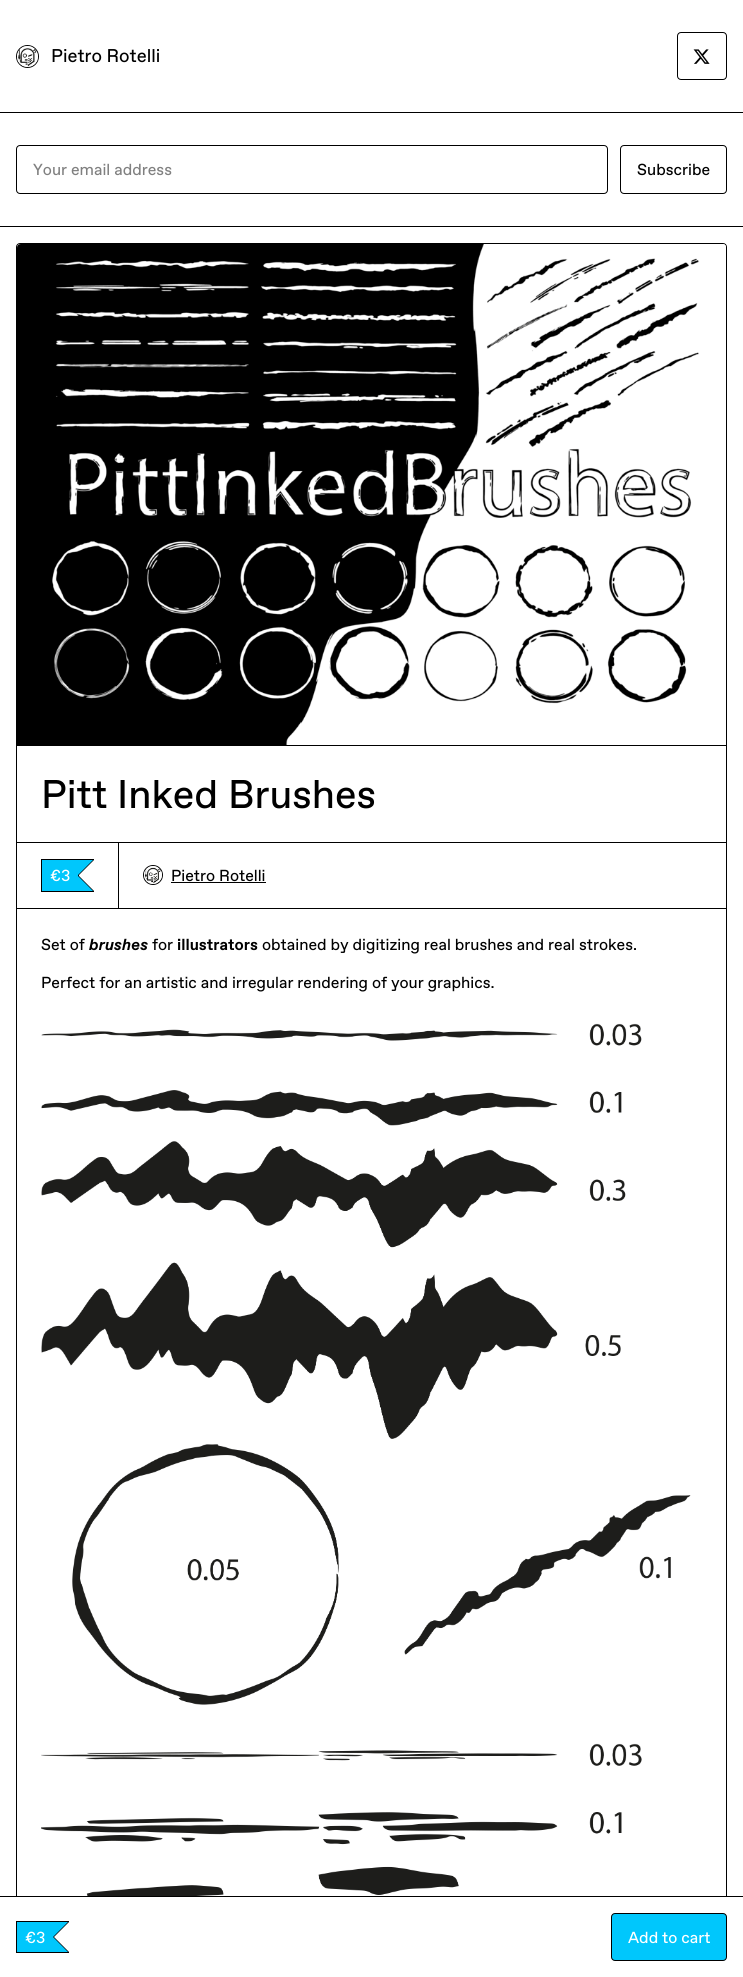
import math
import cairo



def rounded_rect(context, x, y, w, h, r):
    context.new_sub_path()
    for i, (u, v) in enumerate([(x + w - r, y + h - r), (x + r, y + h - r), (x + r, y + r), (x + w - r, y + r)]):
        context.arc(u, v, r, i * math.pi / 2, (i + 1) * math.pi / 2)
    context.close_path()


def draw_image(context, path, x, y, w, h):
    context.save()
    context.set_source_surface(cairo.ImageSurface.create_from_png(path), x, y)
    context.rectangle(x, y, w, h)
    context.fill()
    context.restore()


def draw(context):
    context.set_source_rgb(1, 1, 1)
    context.paint()
    context.set_source_rgb(0, 0, 0)
    context.rectangle(0, 112, 743, 1)
    context.fill()
    context.arc(27.5, 56.5, 11, 0, 2 * math.pi)
    context.set_line_width(1)
    context.stroke()
    draw_image(context, "images/1.png", 17, 46, 21, 21)
    rounded_rect(context, 677.5, 32.5, 49, 47, 3.5)
    context.stroke()
    draw_image(context, "images/2.png", 693, 49, 17, 15)
    context.rectangle(0, 226, 743, 1)
    context.fill()
    rounded_rect(context, 16.5, 145.5, 591, 48, 3.5)
    context.stroke()
    rounded_rect(context, 620.5, 145.5, 106, 48, 3.5)
    context.stroke()
    rounded_rect(context, 16.5, 243.5, 710, 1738, 3.5)
    context.stroke()
    draw_image(context, "images/3.png", 17, 244, 709, 4)
    context.rectangle(17, 745, 709, 1)
    context.fill()
    draw_image(context, "images/4.png", 17, 244, 709, 501)
    context.rectangle(119, 842, 607, 1)
    context.fill()
    context.rectangle(16.5, 842.5, 102, 66)
    context.stroke()
    context.rectangle(41, 859, 53, 1)
    context.fill()
    context.rectangle(41, 891, 53, 1)
    context.fill()
    context.rectangle(41, 859, 1, 33)
    context.fill()
    context.set_source_rgb(0, 199 / 255, 252 / 255)
    context.rectangle(42, 860, 36, 31)
    context.fill()
    context.set_source_rgb(0, 0, 0)
    context.new_path()
    context.move_to(78, 860)
    context.line_to(94, 860)
    context.line_to(79, 875)
    context.close_path()
    context.move_to(94, 891)
    context.line_to(78, 891)
    context.line_to(79, 876)
    context.close_path()
    context.fill()
    context.rectangle(78, 874, 1, 3)
    context.fill()
    context.set_source_rgb(0, 199 / 255, 252 / 255)
    context.new_path()
    context.move_to(77, 860)
    context.line_to(93, 860)
    context.line_to(78, 875)
    context.close_path()
    context.move_to(93, 891)
    context.line_to(77, 891)
    context.line_to(78, 876)
    context.close_path()
    context.fill()
    context.arc(153, 875, 9.5, 0, 2 * math.pi)
    context.set_source_rgb(0, 0, 0)
    context.stroke()
    draw_image(context, "images/5.png", 144, 866, 18, 18)
    context.rectangle(171, 882, 95, 1)
    context.fill()
    context.rectangle(119, 908, 607, 1)
    context.fill()
    draw_image(context, "images/6.png", 41, 1023, 650, 682)
    draw_image(context, "images/7.png", 41, 1743, 601, 153)
    context.rectangle(0, 1896, 743, 1)
    context.fill()
    context.set_source_rgb(1, 1, 1)
    context.rectangle(16, 1897, 711, 80)
    context.fill()
    context.set_source_rgb(0, 0, 0)
    context.rectangle(16, 1921, 53, 1)
    context.fill()
    context.rectangle(16, 1952, 53, 1)
    context.fill()
    context.rectangle(16, 1921, 1, 32)
    context.fill()
    context.set_source_rgb(0, 199 / 255, 252 / 255)
    context.rectangle(17, 1922, 36, 30)
    context.fill()
    context.set_source_rgb(0, 0, 0)
    context.new_path()
    context.move_to(53, 1922)
    context.line_to(69, 1922)
    context.line_to(54, 1937)
    context.close_path()
    context.move_to(69, 1952)
    context.line_to(53, 1952)
    context.line_to(54, 1937)
    context.close_path()
    context.fill()
    context.rectangle(53, 1936, 1, 2)
    context.fill()
    context.set_source_rgb(0, 199 / 255, 252 / 255)
    context.new_path()
    context.move_to(52, 1922)
    context.line_to(68, 1922)
    context.line_to(53, 1937)
    context.close_path()
    context.move_to(68, 1952)
    context.line_to(52, 1952)
    context.line_to(53, 1937)
    context.close_path()
    context.fill()
    rounded_rect(context, 611.5, 1913.5, 115, 47, 3.5)
    context.fill_preserve()
    context.set_source_rgb(0, 0, 0)
    context.stroke()
    context.select_font_face("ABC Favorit")
    context.set_font_size(18.5)
    context.move_to(51, 62)
    context.show_text("Pietro Rotelli")
    context.set_font_size(16)
    context.set_source_rgb(128 / 255, 128 / 255, 128 / 255)
    context.move_to(33, 175)
    context.show_text("Your email address")
    context.set_source_rgb(0, 0, 0)
    context.move_to(637, 175)
    context.show_text("Subscribe")
    context.set_font_size(40)
    context.move_to(41, 808)
    context.show_text("Pitt Inked Brushes")
    context.set_font_size(16)
    context.set_source_rgb(1, 1, 1)
    context.move_to(50, 881)
    context.show_text("€3")
    context.set_source_rgb(0, 0, 0)
    context.move_to(171, 881)
    context.show_text("Pietro Rotelli")
    context.move_to(41, 950)
    context.show_text("Set of")
    context.select_font_face("ABC Favorit", cairo.FontSlant.ITALIC, cairo.FontWeight.BOLD)
    context.move_to(89, 950)
    context.show_text("brushes")
    context.select_font_face("ABC Favorit")
    context.move_to(152, 950)
    context.show_text("for")
    context.select_font_face("ABC Favorit", cairo.FontSlant.NORMAL, cairo.FontWeight.BOLD)
    context.move_to(177, 950)
    context.show_text("illustrators")
    context.select_font_face("ABC Favorit")
    context.move_to(262, 950)
    context.show_text("obtained by digitizing real brushes and real strokes.")
    context.move_to(41, 988)
    context.show_text("Perfect for an artistic and irregular rendering of your graphics.")
    context.set_source_rgb(1, 1, 1)
    context.move_to(25, 1943)
    context.show_text("€3")
    context.move_to(628, 1943)
    context.show_text("Add to cart")


surface = cairo.ImageSurface(cairo.Format.RGB24, 743, 1977)
context = cairo.Context(surface)
options = cairo.FontOptions()
options.set_hint_metrics(cairo.HintMetrics.OFF)
options.set_hint_style(cairo.HintStyle.NONE)
context.set_font_options(options)
context.set_miter_limit(4)
draw(context)
surface.write_to_png("out.png")
